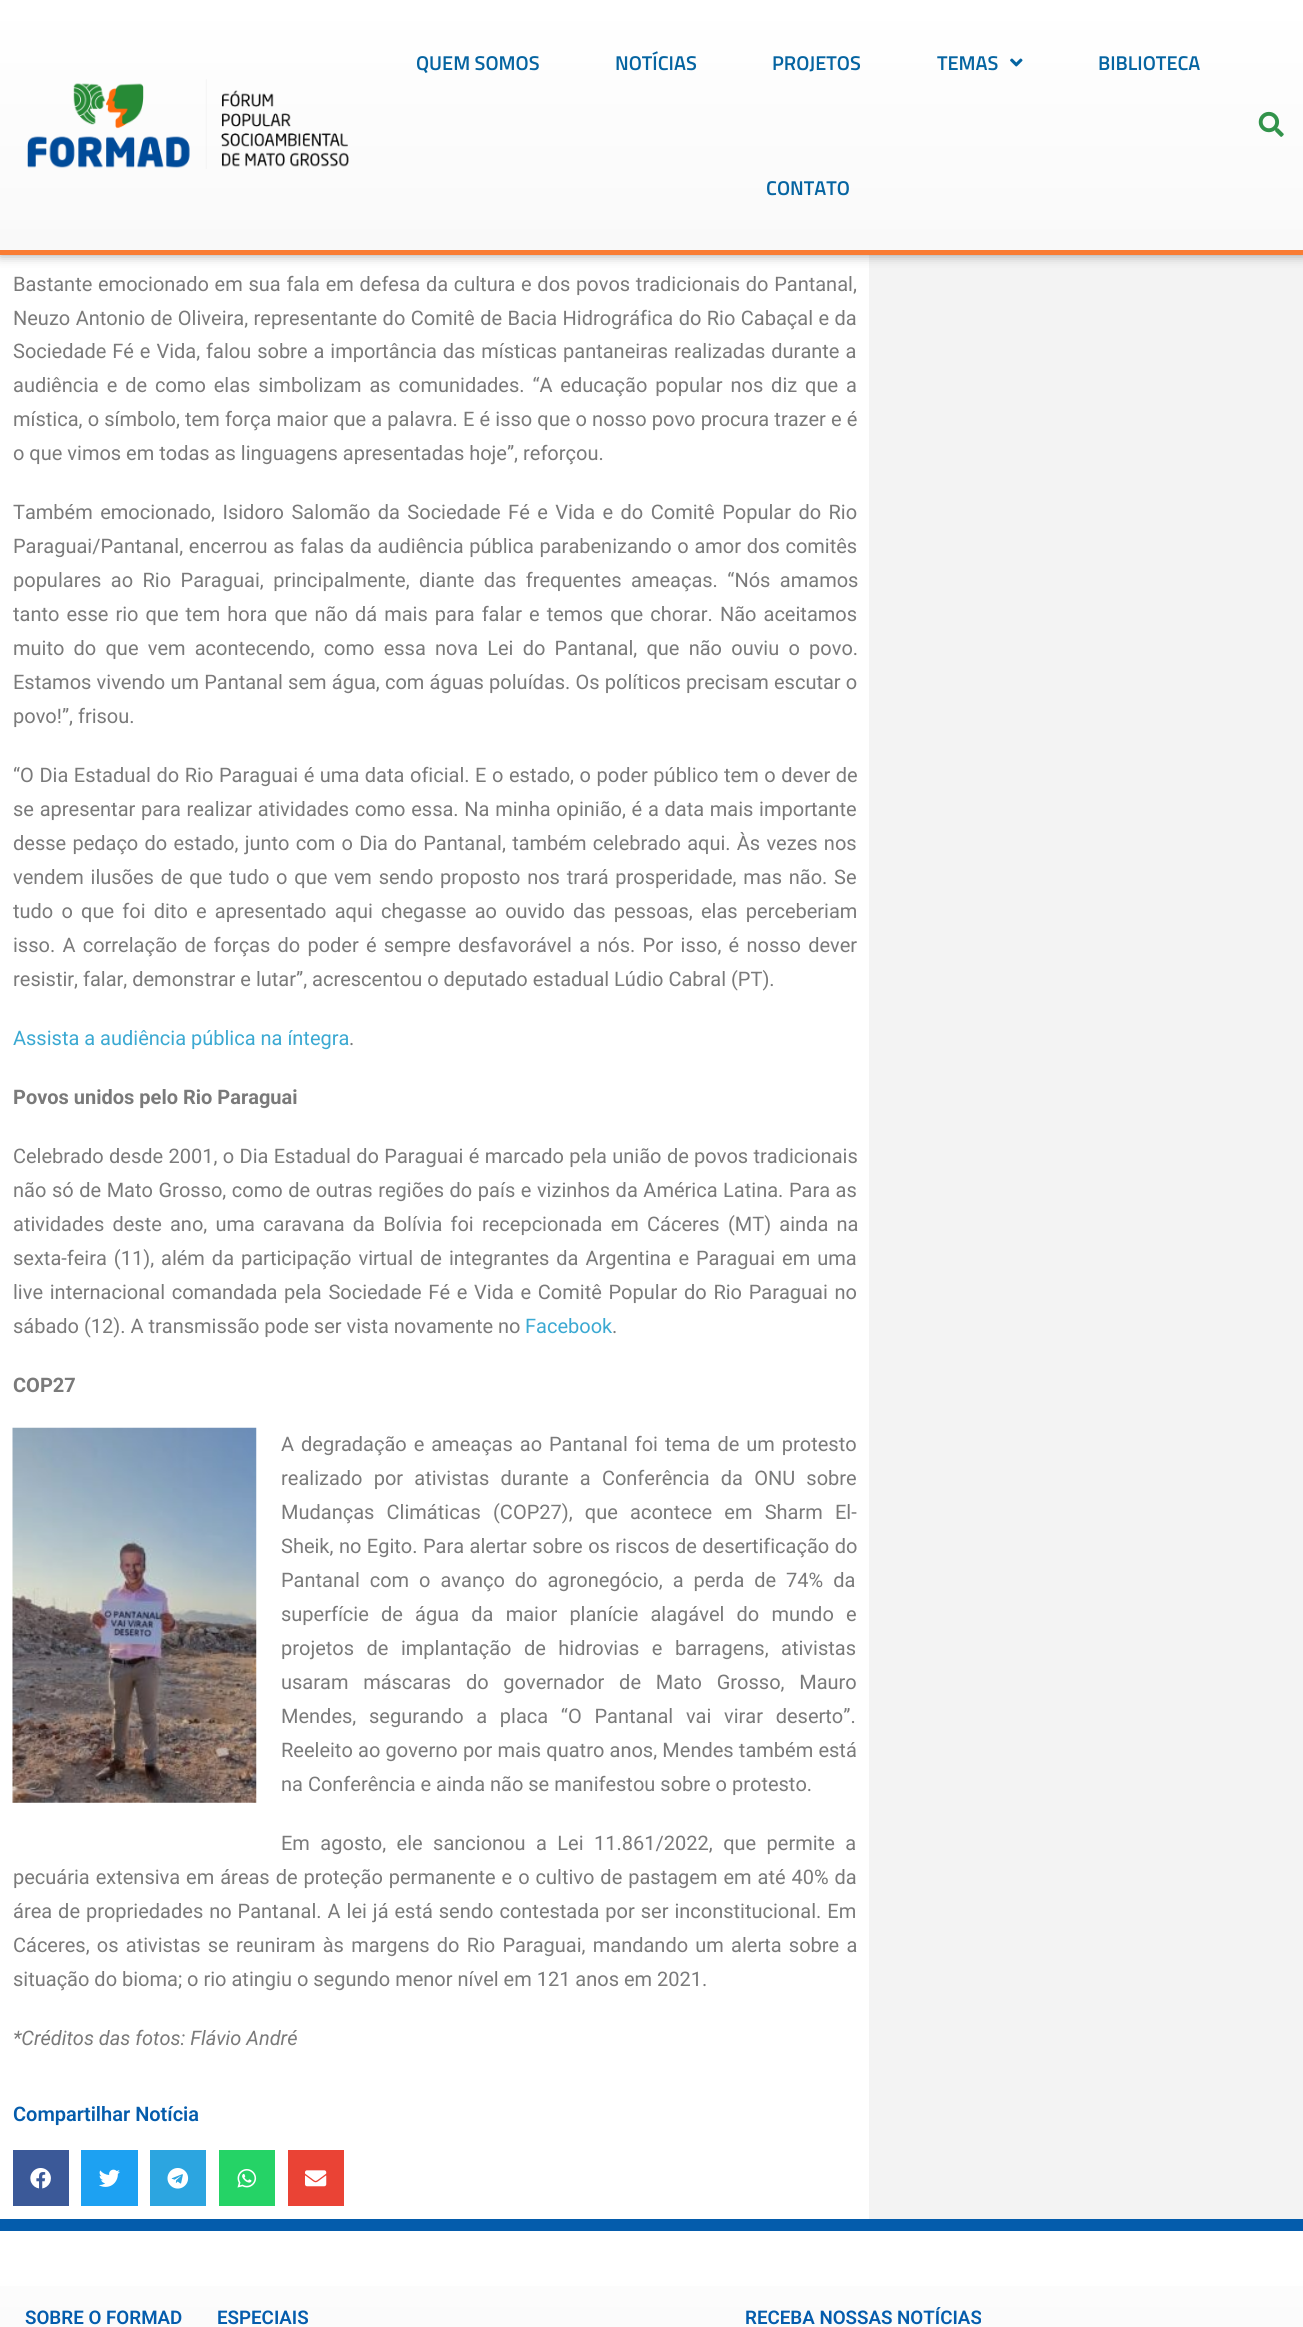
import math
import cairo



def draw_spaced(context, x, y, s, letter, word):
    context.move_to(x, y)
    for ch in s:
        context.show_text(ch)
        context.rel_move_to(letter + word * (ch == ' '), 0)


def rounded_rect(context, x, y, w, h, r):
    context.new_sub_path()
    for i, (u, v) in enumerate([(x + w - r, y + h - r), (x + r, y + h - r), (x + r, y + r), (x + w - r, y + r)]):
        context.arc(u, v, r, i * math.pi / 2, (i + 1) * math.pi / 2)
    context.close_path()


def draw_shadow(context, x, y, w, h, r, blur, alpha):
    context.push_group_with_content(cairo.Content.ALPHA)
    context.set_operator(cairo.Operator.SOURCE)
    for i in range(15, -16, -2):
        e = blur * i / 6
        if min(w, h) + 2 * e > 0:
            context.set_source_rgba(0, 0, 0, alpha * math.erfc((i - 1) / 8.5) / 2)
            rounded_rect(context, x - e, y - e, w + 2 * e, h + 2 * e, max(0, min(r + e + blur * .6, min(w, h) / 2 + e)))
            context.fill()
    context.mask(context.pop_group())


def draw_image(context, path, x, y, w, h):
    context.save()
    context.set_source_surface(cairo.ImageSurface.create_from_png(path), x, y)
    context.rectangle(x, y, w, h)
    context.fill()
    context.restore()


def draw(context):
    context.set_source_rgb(1, 1, 1)
    context.paint()
    context.set_source_rgb(243 / 255, 243 / 255, 243 / 255)
    context.rectangle(869, 255, 434, 1964)
    context.fill()
    context.set_source_rgb(0, 0, 0)
    draw_shadow(context, 0, 0, 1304, 255, 0, 6, 0.37)
    gradient = cairo.LinearGradient(652, 0, 652, 250)
    gradient.add_color_stop_rgba(0, 1, 1, 1, 1)
    gradient.add_color_stop_rgba(1, 249 / 255, 249 / 255, 249 / 255, 1)
    context.set_source(gradient)
    context.rectangle(0, 0, 1303, 250)
    context.fill()
    context.set_source_rgb(249 / 255, 124 / 255, 52 / 255)
    context.rectangle(0, 250, 1303, 5)
    context.fill()
    draw_image(context, "images/1.png", 27, 79, 322, 90)
    draw_image(context, "images/2.png", 1010, 58, 13, 9)
    draw_image(context, "images/3.png", 1258, 111, 26, 26)
    draw_image(context, "images/4.png", 12, 1427, 245, 376)
    context.set_source_rgb(59 / 255, 89 / 255, 152 / 255)
    context.rectangle(13, 2150, 56, 56)
    context.fill()
    draw_image(context, "images/5.png", 30, 2168, 21, 21)
    context.set_source_rgb(29 / 255, 161 / 255, 242 / 255)
    context.rectangle(81, 2150, 57, 56)
    context.fill()
    draw_image(context, "images/6.png", 99, 2169, 21, 18)
    context.set_source_rgb(44 / 255, 165 / 255, 224 / 255)
    context.rectangle(150, 2150, 56, 56)
    context.fill()
    draw_image(context, "images/7.png", 167, 2168, 22, 21)
    context.set_source_rgb(37 / 255, 211 / 255, 102 / 255)
    context.rectangle(219, 2150, 56, 56)
    context.fill()
    draw_image(context, "images/8.png", 237, 2169, 20, 19)
    context.set_source_rgb(234 / 255, 67 / 255, 53 / 255)
    context.rectangle(288, 2150, 56, 56)
    context.fill()
    draw_image(context, "images/9.png", 305, 2170, 22, 17)
    gradient = cairo.LinearGradient(652, 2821, 652, 2231)
    gradient.add_color_stop_rgba(0, 228 / 255, 228 / 255, 228 / 255, 1)
    gradient.add_color_stop_rgba(1, 1, 1, 1, 1)
    context.set_source(gradient)
    context.rectangle(0, 2286, 1303, 41)
    context.fill()
    context.set_source_rgb(4 / 255, 92 / 255, 172 / 255)
    context.rectangle(0, 2219, 1303, 12)
    context.fill()
    context.select_font_face("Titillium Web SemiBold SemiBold")
    context.set_font_size(20)
    context.set_source_rgb(5 / 255, 100 / 255, 161 / 255)
    context.move_to(416, 70)
    context.show_text("QUEM SOMOS")
    context.move_to(615, 70)
    context.show_text("NOTÍCIAS")
    context.move_to(772, 70)
    context.show_text("PROJETOS")
    context.move_to(937, 70)
    context.show_text("TEMAS")
    context.move_to(1098, 70)
    context.show_text("BIBLIOTECA")
    context.move_to(766, 195)
    context.show_text("CONTATO")
    context.select_font_face("Roboto")
    context.set_source_rgb(122 / 255, 122 / 255, 122 / 255)
    draw_spaced(context, 13, 291, "Bastante emocionado em sua fala em defesa da cultura e dos povos tradicionais do Pantanal,", 0, 0.75)
    draw_spaced(context, 13, 325, "Neuzo Antonio de Oliveira, representante do Comitê de Bacia Hidrográfica do Rio Cabaçal e da", 0, 0.5)
    draw_spaced(context, 13, 358, "Sociedade Fé e Vida, falou sobre a importância das místicas pantaneiras realizadas durante a", 0, 1)
    draw_spaced(context, 13, 392, "audiência e de como elas simbolizam as comunidades. “A educação popular nos diz que a", 0, 2.9)
    draw_spaced(context, 13, 426, "mística, o símbolo, tem força maior que a palavra. E é isso que o nosso povo procura trazer e é", 0, 0.2)
    context.move_to(13, 460)
    context.show_text("o que vimos em todas as linguagens apresentadas hoje”, reforçou.")
    draw_spaced(context, 13, 519, "Também emocionado, Isidoro Salomão da Sociedade Fé e Vida e do Comitê Popular do Rio", 0, 2.5)
    draw_spaced(context, 13, 553, "Paraguai/Pantanal, encerrou as falas da audiência pública parabenizando o amor dos comitês", 0, 0.75)
    draw_spaced(context, 13, 587, "populares ao Rio Paraguai, principalmente, diante das frequentes ameaças. “Nós amamos", 0, 4.5)
    draw_spaced(context, 13, 621, "tanto esse rio que tem hora que não dá mais para falar e temos que chorar. Não aceitamos", 0, 2.1)
    draw_spaced(context, 13, 655, "muito do que vem acontecendo, como essa nova Lei do Pantanal, que não ouviu o povo.", 0, 4.25)
    draw_spaced(context, 13, 689, "Estamos vivendo um Pantanal sem água, com águas poluídas. Os políticos precisam escutar o", 0, 0.25)
    context.move_to(13, 723)
    context.show_text("povo!”, frisou.")
    draw_spaced(context, 13, 782, "“O Dia Estadual do Rio Paraguai é uma data oficial. E o estado, o poder público tem o dever de", 0, 0.6)
    draw_spaced(context, 13, 816, "se apresentar para realizar atividades como essa. Na minha opinião, é a data mais importante", 0, 0.75)
    draw_spaced(context, 13, 850, "desse pedaço do estado, junto com o Dia do Pantanal, também celebrado aqui. Às vezes nos", 0, 1.3)
    draw_spaced(context, 13, 884, "vendem ilusões de que tudo o que vem sendo proposto nos trará prosperidade, mas não. Se", 0, 1.8)
    draw_spaced(context, 13, 918, "tudo o que foi dito e apresentado aqui chegasse ao ouvido das pessoas, elas perceberiam", 0, 3.25)
    draw_spaced(context, 13, 952, "isso. A correlação de forças do poder é sempre desfavorável a nós. Por isso, é nosso dever", 0, 2.25)
    context.move_to(13, 986)
    context.show_text("resistir, falar, demonstrar e lutar”, acrescentou o deputado estadual Lúdio Cabral (PT).")
    context.set_source_rgb(59 / 255, 169 / 255, 210 / 255)
    context.move_to(13, 1045)
    context.show_text("Assista a audiência pública na íntegra")
    context.set_source_rgb(122 / 255, 122 / 255, 122 / 255)
    context.move_to(349, 1045)
    context.show_text(".")
    context.select_font_face("Roboto", cairo.FontSlant.NORMAL, cairo.FontWeight.BOLD)
    context.move_to(13, 1104)
    context.show_text("Povos unidos pelo Rio Paraguai")
    context.select_font_face("Roboto")
    draw_spaced(context, 13, 1163, "Celebrado desde 2001, o Dia Estadual do Paraguai é marcado pela união de povos tradicionais", 0, 0.4)
    draw_spaced(context, 13, 1197, "não só de Mato Grosso, como de outras regiões do país e vizinhos da América Latina. Para as", 0, 0.6)
    draw_spaced(context, 13, 1231, "atividades deste ano, uma caravana da Bolívia foi recepcionada em Cáceres (MT) ainda na", 0, 3.25)
    draw_spaced(context, 13, 1265, "sexta-feira (11), além da participação virtual de integrantes da Argentina e Paraguai em uma", 0, 2)
    draw_spaced(context, 13, 1299, "live internacional comandada pela Sociedade Fé e Vida e Comitê Popular do Rio Paraguai no", 0, 1.75)
    context.move_to(13, 1333)
    context.show_text("sábado (12). A transmissão pode ser vista novamente no")
    context.set_source_rgb(59 / 255, 169 / 255, 210 / 255)
    context.move_to(525, 1333)
    context.show_text("Facebook")
    context.set_source_rgb(122 / 255, 122 / 255, 122 / 255)
    context.move_to(612, 1333)
    context.show_text(".")
    context.select_font_face("Roboto", cairo.FontSlant.NORMAL, cairo.FontWeight.BOLD)
    context.move_to(13, 1392)
    context.show_text("COP27")
    context.select_font_face("Roboto")
    draw_spaced(context, 281, 1451, "A degradação e ameaças ao Pantanal foi tema de um protesto", 0, 2)
    draw_spaced(context, 281, 1485, "realizado por ativistas durante a Conferência da ONU sobre", 0, 6.25)
    draw_spaced(context, 281, 1519, "Mudanças Climáticas (COP27), que acontece em Sharm El-", 0, 7.25)
    draw_spaced(context, 281, 1553, "Sheik, no Egito. Para alertar sobre os riscos de desertificação do", 0, 0.5)
    draw_spaced(context, 281, 1587, "Pantanal com o avanço do agronegócio, a perda de 74% da", 0, 5)
    draw_spaced(context, 281, 1621, "superfície de água da maior planície alagável do mundo e", 0, 7.25)
    draw_spaced(context, 281, 1655, "projetos de implantação de hidrovias e barragens, ativistas", 0, 7.5)
    draw_spaced(context, 281, 1689, "usaram máscaras do governador de Mato Grosso, Mauro", 0, 9.75)
    draw_spaced(context, 281, 1723, "Mendes, segurando a placa “O Pantanal vai virar deserto”.", 0, 7.75)
    draw_spaced(context, 281, 1757, "Reeleito ao governo por mais quatro anos, Mendes também está", 0, 0.25)
    context.move_to(281, 1791)
    context.show_text("na Conferência e ainda não se manifestou sobre o protesto.")
    draw_spaced(context, 281, 1850, "Em agosto, ele sancionou a Lei 11.861/2022, que permite a", 0, 5.5)
    draw_spaced(context, 13, 1884, "pecuária extensiva em áreas de proteção permanente e o cultivo de pastagem em até 40% da", 0, 1)
    draw_spaced(context, 13, 1918, "área de propriedades no Pantanal. A lei já está sendo contestada por ser inconstitucional. Em", 0, 1)
    draw_spaced(context, 13, 1952, "Cáceres, os ativistas se reuniram às margens do Rio Paraguai, mandando um alerta sobre a", 0, 2.25)
    context.move_to(13, 1986)
    context.show_text("situação do bioma; o rio atingiu o segundo menor nível em 121 anos em 2021.")
    context.select_font_face("Roboto", cairo.FontSlant.ITALIC)
    context.move_to(13, 2045)
    context.show_text("*Créditos das fotos: Flávio André")
    context.select_font_face("Roboto SemiBold")
    context.set_source_rgb(4 / 255, 92 / 255, 172 / 255)
    context.move_to(13, 2121)
    context.show_text("Compartilhar Notícia")
    context.set_font_size(18.75)
    context.move_to(25, 2324)
    context.show_text("SOBRE O FORMAD")
    context.move_to(217, 2324)
    context.show_text("ESPECIAIS")
    context.move_to(745, 2324)
    context.show_text("RECEBA NOSSAS NOTÍCIAS")


surface = cairo.ImageSurface(cairo.Format.RGB24, 1303, 2327)
context = cairo.Context(surface)
options = cairo.FontOptions()
options.set_hint_metrics(cairo.HintMetrics.OFF)
options.set_hint_style(cairo.HintStyle.NONE)
context.set_font_options(options)
context.set_miter_limit(4)
draw(context)
surface.write_to_png("out.png")
